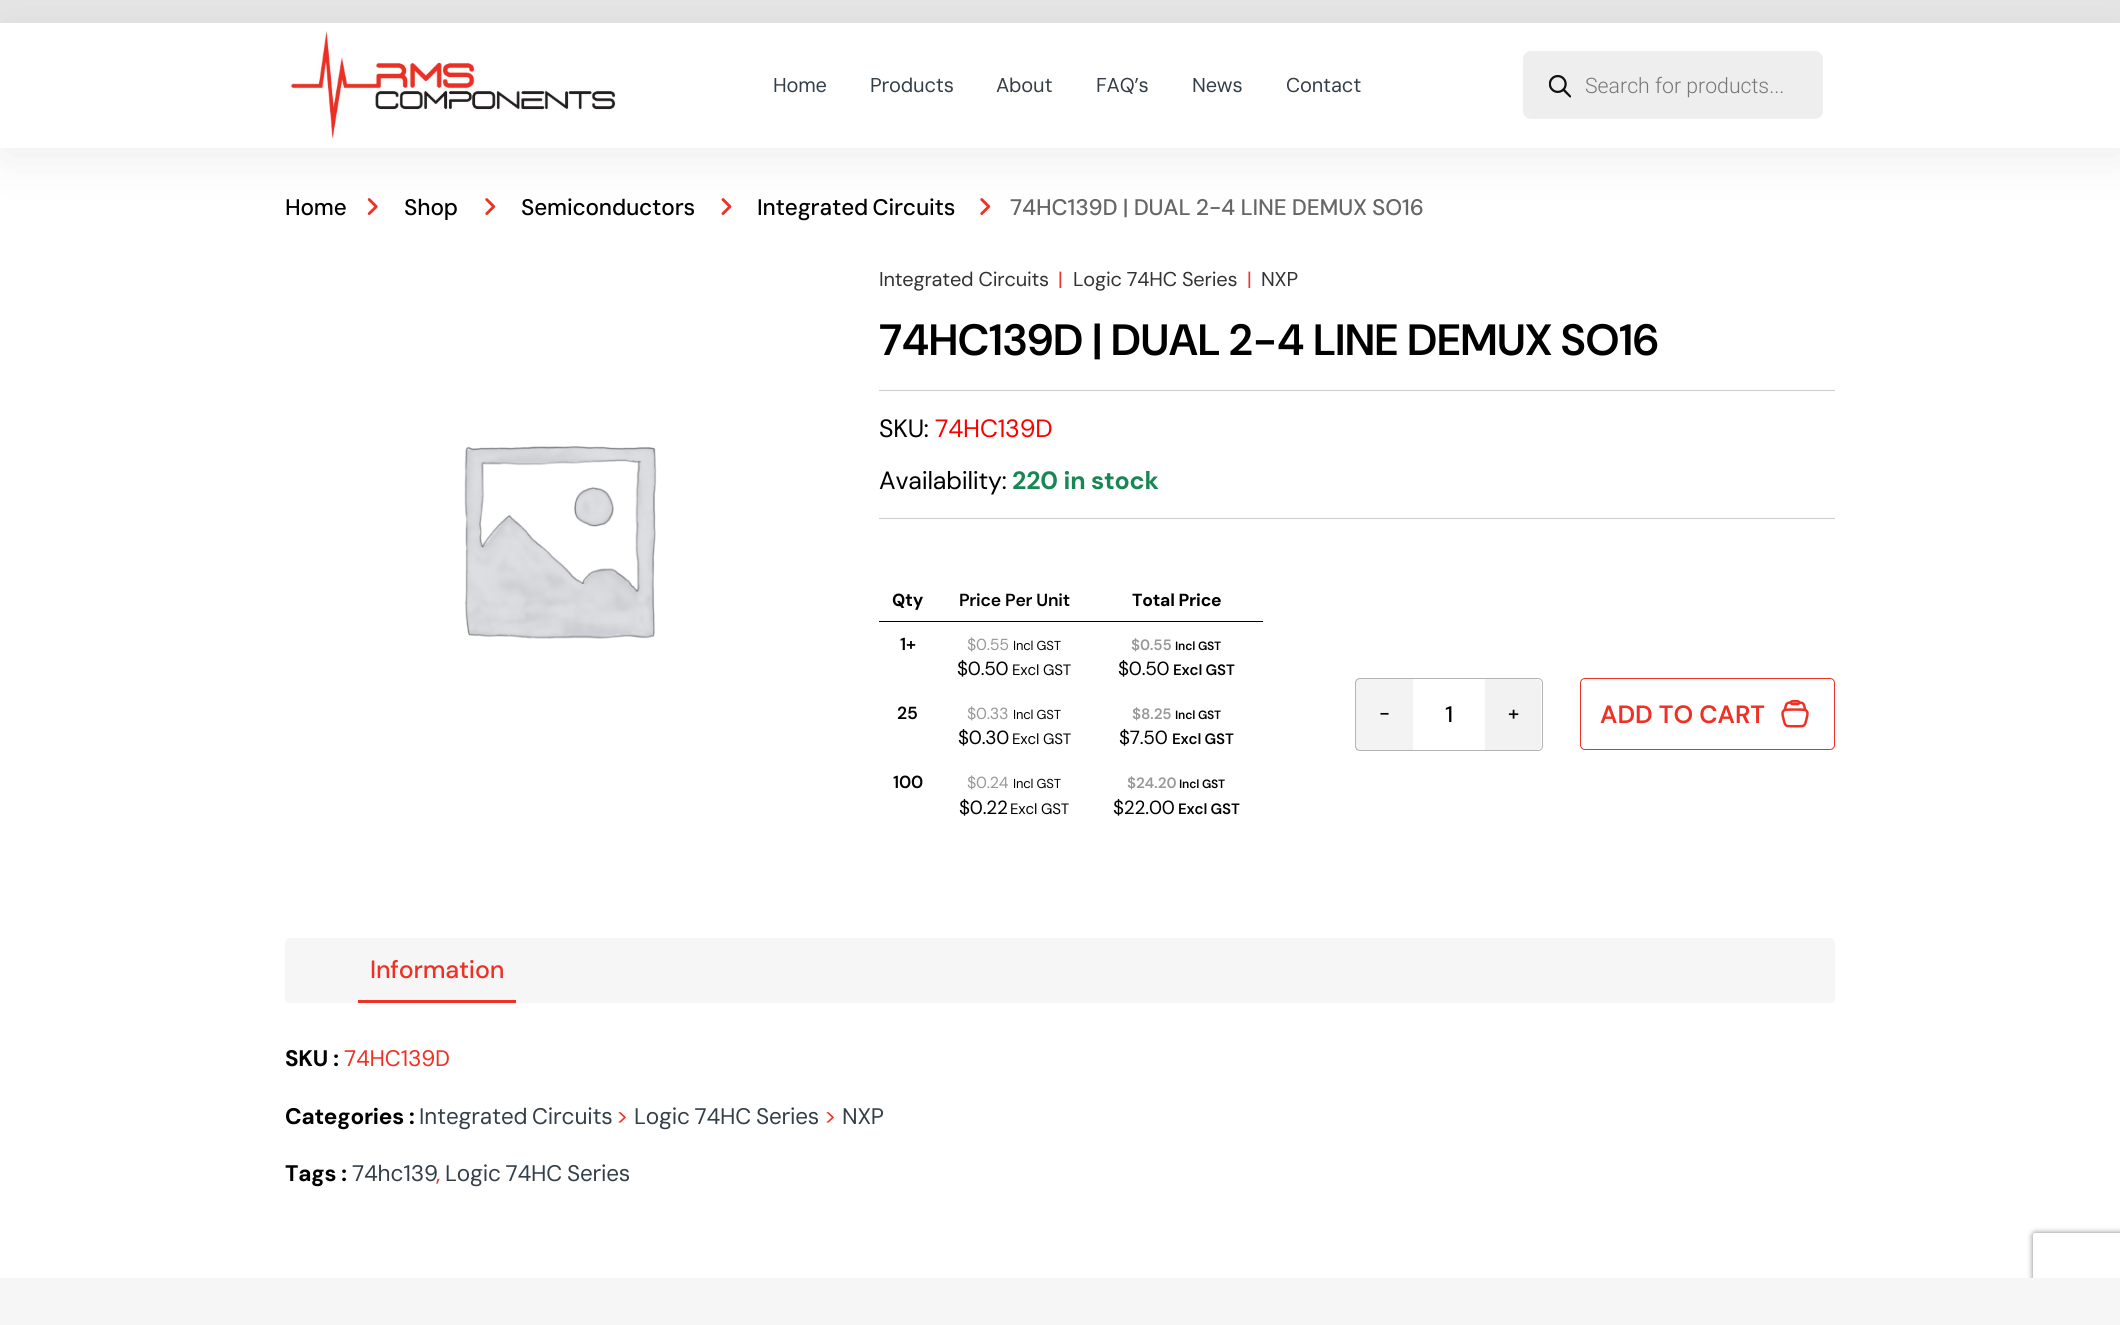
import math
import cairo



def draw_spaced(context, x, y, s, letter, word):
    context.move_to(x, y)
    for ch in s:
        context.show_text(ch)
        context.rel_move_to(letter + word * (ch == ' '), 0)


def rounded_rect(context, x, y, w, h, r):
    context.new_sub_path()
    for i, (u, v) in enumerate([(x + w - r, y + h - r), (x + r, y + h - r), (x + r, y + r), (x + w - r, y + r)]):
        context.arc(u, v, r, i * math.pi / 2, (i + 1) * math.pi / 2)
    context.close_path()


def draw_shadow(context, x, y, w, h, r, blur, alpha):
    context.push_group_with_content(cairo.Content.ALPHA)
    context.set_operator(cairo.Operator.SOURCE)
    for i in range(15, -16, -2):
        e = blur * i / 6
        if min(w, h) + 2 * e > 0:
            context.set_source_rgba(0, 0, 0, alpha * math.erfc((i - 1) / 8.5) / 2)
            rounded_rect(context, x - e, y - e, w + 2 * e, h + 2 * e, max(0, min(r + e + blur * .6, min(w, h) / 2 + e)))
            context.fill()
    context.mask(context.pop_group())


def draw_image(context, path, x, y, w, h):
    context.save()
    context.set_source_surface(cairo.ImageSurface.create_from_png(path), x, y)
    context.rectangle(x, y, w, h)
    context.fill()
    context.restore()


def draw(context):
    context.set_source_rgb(1, 1, 1)
    context.paint()
    context.set_source_rgb(230 / 255, 230 / 255, 230 / 255)
    context.rectangle(0, 0, 2120, 23)
    context.fill()
    context.save()
    context.set_fill_rule(cairo.FillRule.EVEN_ODD)
    context.new_path()
    context.move_to(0, 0)
    context.line_to(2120, 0)
    context.line_to(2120, 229)
    context.line_to(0, 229)
    context.close_path()
    context.move_to(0, 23)
    context.line_to(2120, 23)
    context.line_to(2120, 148)
    context.line_to(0, 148)
    context.close_path()
    context.clip()
    context.set_source_rgb(174 / 255, 174 / 255, 174 / 255)
    draw_shadow(context, 4, 28, 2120, 125, 0, 25, 0.25)
    context.restore()
    draw_image(context, "images/1.png", 289, 31, 327, 108)
    context.set_source_rgb(238 / 255, 238 / 255, 238 / 255)
    rounded_rect(context, 1523, 51, 300, 68, 8)
    context.fill()
    draw_image(context, "images/2.png", 1549, 75, 22, 23)
    draw_image(context, "images/3.png", 367, 198, 11, 17)
    draw_image(context, "images/4.png", 485, 198, 11, 17)
    draw_image(context, "images/5.png", 721, 198, 11, 17)
    draw_image(context, "images/4.png", 980, 198, 11, 17)
    draw_image(context, "images/6.png", 464, 446, 193, 193)
    context.set_source_rgb(204 / 255, 207 / 255, 209 / 255)
    context.rectangle(879, 390, 956, 1)
    context.fill()
    context.rectangle(879, 518, 956, 1)
    context.fill()
    context.set_source_rgb(0, 0, 0)
    context.rectangle(879, 621, 384, 1)
    context.fill()
    rounded_rect(context, 1355.5, 678.5, 187, 72, 4.5)
    context.set_source_rgb(179 / 255, 179 / 255, 179 / 255)
    context.set_line_width(1)
    context.stroke()
    context.set_source_rgba(0, 0, 0, 0.05)
    context.rectangle(1356, 679, 57, 71)
    context.fill()
    context.set_source_rgb(242 / 255, 242 / 255, 242 / 255)
    context.new_path()
    context.move_to(1485, 679)
    context.line_to(1536, 679)
    context.curve_to(1539, 679, 1541, 681, 1541, 684)
    context.line_to(1541, 745)
    context.curve_to(1541, 748, 1539, 750, 1536, 750)
    context.line_to(1485, 750)
    context.close_path()
    context.fill()
    rounded_rect(context, 1580.5, 678.5, 254, 71, 4.5)
    context.set_source_rgb(238 / 255, 49 / 255, 36 / 255)
    context.stroke()
    draw_image(context, "images/7.png", 1781, 700, 28, 28)
    context.set_source_rgb(246 / 255, 246 / 255, 246 / 255)
    rounded_rect(context, 285, 938, 1550, 65, 5)
    context.fill()
    context.set_source_rgb(238 / 255, 49 / 255, 36 / 255)
    context.rectangle(358, 1000, 158, 3)
    context.fill()
    context.set_source_rgb(246 / 255, 246 / 255, 246 / 255)
    context.rectangle(0, 1278, 1835, 47)
    context.fill()
    context.save()
    context.set_fill_rule(cairo.FillRule.EVEN_ODD)
    context.new_path()
    context.move_to(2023, 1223)
    context.line_to(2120, 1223)
    context.line_to(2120, 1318)
    context.line_to(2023, 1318)
    context.close_path()
    context.move_to(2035.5, 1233)
    context.line_to(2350.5, 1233)
    context.curve_to(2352, 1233, 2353, 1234, 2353, 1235.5)
    context.line_to(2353, 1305.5)
    context.curve_to(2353, 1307, 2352, 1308, 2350.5, 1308)
    context.line_to(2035.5, 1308)
    context.curve_to(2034, 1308, 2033, 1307, 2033, 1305.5)
    context.line_to(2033, 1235.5)
    context.curve_to(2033, 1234, 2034, 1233, 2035.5, 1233)
    context.close_path()
    context.clip()
    context.set_source_rgb(128 / 255, 128 / 255, 128 / 255)
    draw_shadow(context, 2033, 1233, 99, 75, 2.5, 3, 1)
    context.restore()
    context.rectangle(1835, 1278, 285, 47)
    context.fill()
    context.select_font_face("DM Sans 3")
    context.set_font_size(20)
    context.set_source_rgb(51 / 255, 62 / 255, 72 / 255)
    draw_spaced(context, 773, 92, "Home", -0.2, 0)
    draw_spaced(context, 870, 92, "Products", -0.2, 0)
    draw_spaced(context, 996, 92, "About", -0.2, 0)
    draw_spaced(context, 1096, 92, "FAQ’s", -0.2, 0)
    draw_spaced(context, 1192, 92, "News", -0.2, 0)
    draw_spaced(context, 1286, 92, "Contact", -0.2, 0)
    context.select_font_face("Roboto Light")
    context.set_font_size(21.25)
    context.set_source_rgb(119 / 255, 119 / 255, 119 / 255)
    context.move_to(1585, 93)
    context.show_text("Search for products...")
    context.select_font_face("DM Sans Medium")
    context.set_font_size(22.5)
    context.set_source_rgb(0, 0, 0)
    draw_spaced(context, 285, 215, "Home", -0.2, 0)
    draw_spaced(context, 404, 215, "Shop", -0.2, 0)
    draw_spaced(context, 521, 215, "Semiconductors", -0.2, 0)
    draw_spaced(context, 757, 215, "Integrated Circuits", -0.2, -1)
    context.set_source_rgb(102 / 255, 102 / 255, 102 / 255)
    draw_spaced(context, 1010, 215, "74HC139D | DUAL 2-4 LINE DEMUX", -0.2, -0.25)
    draw_spaced(context, 1372, 215, "SO16", -0.2, 0)
    context.select_font_face("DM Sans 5")
    context.set_font_size(20)
    context.set_source_rgb(51 / 255, 51 / 255, 51 / 255)
    draw_spaced(context, 879, 286, "Integrated Circuits", -0.2, 0)
    context.set_source_rgb(238 / 255, 49 / 255, 36 / 255)
    draw_spaced(context, 1058, 286, "|", -0.2, 0)
    context.set_source_rgb(51 / 255, 51 / 255, 51 / 255)
    draw_spaced(context, 1073, 286, "Logic 74HC Series", -0.2, 0)
    context.set_source_rgb(238 / 255, 49 / 255, 36 / 255)
    draw_spaced(context, 1247, 286, "|", -0.2, 0)
    context.set_source_rgb(51 / 255, 51 / 255, 51 / 255)
    draw_spaced(context, 1261, 286, "NXP", -0.2, 0)
    context.select_font_face("DM Sans SemiBold")
    context.set_font_size(43.75)
    context.set_source_rgb(0, 0, 0)
    draw_spaced(context, 879, 355, "74HC139D | DUAL 2-4 LINE DEMUX SO16", -0.2, 0)
    context.select_font_face("DM Sans")
    context.set_font_size(25)
    draw_spaced(context, 879, 437, "SKU:", -0.2, 0)
    context.set_source_rgb(1, 0, 0)
    draw_spaced(context, 935, 437, "74HC139D", -0.2, 0)
    context.set_source_rgb(0, 0, 0)
    draw_spaced(context, 879, 489, "Availability:", -0.2, 0)
    context.select_font_face("DM Sans", cairo.FontSlant.NORMAL, cairo.FontWeight.BOLD)
    context.set_source_rgb(25 / 255, 135 / 255, 84 / 255)
    draw_spaced(context, 1012, 489, "220 in stock", -0.2, 0)
    context.select_font_face("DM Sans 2", cairo.FontSlant.NORMAL, cairo.FontWeight.BOLD)
    context.set_font_size(17.5)
    context.set_source_rgb(0, 0, 0)
    draw_spaced(context, 892, 606, "Qty", -0.2, 0)
    context.select_font_face("DM Sans 2 SemiBold")
    draw_spaced(context, 959, 606, "Price Per Unit", -0.2, 0)
    context.select_font_face("DM Sans 3", cairo.FontSlant.NORMAL, cairo.FontWeight.BOLD)
    draw_spaced(context, 1132, 606, "Total Price", -0.2, 0)
    context.select_font_face("DM Sans 2 SemiBold")
    draw_spaced(context, 900, 650, "1+", -0.2, 0)
    context.select_font_face("DM Sans 2")
    context.set_font_size(16)
    context.set_source_rgb(152 / 255, 152 / 255, 152 / 255)
    draw_spaced(context, 967, 650, "$0.55", -0.2, 0)
    context.select_font_face("DM Sans 3")
    context.set_font_size(13)
    context.set_source_rgb(0, 0, 0)
    draw_spaced(context, 1013, 650, "Incl GST", -0.2, 0)
    context.select_font_face("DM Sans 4")
    context.set_font_size(19)
    draw_spaced(context, 957, 675, "$0.50", -0.2, 0)
    context.select_font_face("DM Sans 3")
    context.set_font_size(15)
    draw_spaced(context, 1012, 675, "Excl GST", -0.2, 0)
    context.select_font_face("DM Sans 3 SemiBold")
    context.set_source_rgb(152 / 255, 152 / 255, 152 / 255)
    draw_spaced(context, 1131, 650, "$0.55", -0.2, 0)
    context.set_font_size(12)
    context.set_source_rgb(0, 0, 0)
    draw_spaced(context, 1175, 650, "Incl GST", -0.2, 0)
    context.select_font_face("DM Sans 4")
    context.set_font_size(19)
    draw_spaced(context, 1118, 675, "$0.50", -0.2, 0)
    context.select_font_face("DM Sans 3 SemiBold")
    context.set_font_size(15)
    draw_spaced(context, 1173, 675, "Excl GST", -0.2, 0)
    context.select_font_face("DM Sans 2 SemiBold")
    context.set_font_size(17.5)
    draw_spaced(context, 897, 719, "25", -0.2, 0)
    context.select_font_face("DM Sans 2")
    context.set_font_size(16)
    context.set_source_rgb(152 / 255, 152 / 255, 152 / 255)
    draw_spaced(context, 967, 719, "$0.33", -0.2, 0)
    context.select_font_face("DM Sans 3")
    context.set_font_size(13)
    context.set_source_rgb(0, 0, 0)
    draw_spaced(context, 1013, 719, "Incl GST", -0.2, 0)
    context.select_font_face("DM Sans 4")
    context.set_font_size(19)
    draw_spaced(context, 958, 744, "$0.30", -0.2, 0)
    context.select_font_face("DM Sans 3")
    context.set_font_size(15)
    draw_spaced(context, 1012, 744, "Excl GST", -0.2, 0)
    context.select_font_face("DM Sans 3 SemiBold")
    context.set_source_rgb(152 / 255, 152 / 255, 152 / 255)
    draw_spaced(context, 1132, 719, "$8.25", -0.2, 0)
    context.set_font_size(12)
    context.set_source_rgb(0, 0, 0)
    draw_spaced(context, 1175, 719, "Incl GST", -0.2, 0)
    context.select_font_face("DM Sans 4")
    context.set_font_size(19)
    draw_spaced(context, 1119, 744, "$7.50", -0.2, 0)
    context.select_font_face("DM Sans 3 SemiBold")
    context.set_font_size(15)
    draw_spaced(context, 1172, 744, "Excl GST", -0.2, 0)
    context.select_font_face("DM Sans 2 SemiBold")
    context.set_font_size(17.5)
    draw_spaced(context, 893, 788, "100", -0.2, 0)
    context.select_font_face("DM Sans 2")
    context.set_font_size(16)
    context.set_source_rgb(152 / 255, 152 / 255, 152 / 255)
    draw_spaced(context, 967, 788, "$0.24", -0.2, 0)
    context.select_font_face("DM Sans 3")
    context.set_font_size(13)
    context.set_source_rgb(0, 0, 0)
    draw_spaced(context, 1013, 788, "Incl GST", -0.2, 0)
    context.select_font_face("DM Sans 4")
    context.set_font_size(19)
    draw_spaced(context, 959, 814, "$0.22", -0.2, 0)
    context.select_font_face("DM Sans 3")
    context.set_font_size(15)
    draw_spaced(context, 1010, 814, "Excl GST", -0.2, 0)
    context.select_font_face("DM Sans 3 SemiBold")
    context.set_source_rgb(152 / 255, 152 / 255, 152 / 255)
    draw_spaced(context, 1127, 788, "$24.20", -0.2, 0)
    context.set_font_size(12)
    context.set_source_rgb(0, 0, 0)
    draw_spaced(context, 1179, 788, "Incl GST", -0.2, 0)
    context.select_font_face("DM Sans 4")
    context.set_font_size(19)
    draw_spaced(context, 1113, 814, "$22.00", -0.2, 0)
    context.select_font_face("DM Sans 3 SemiBold")
    context.set_font_size(15)
    draw_spaced(context, 1178, 814, "Excl GST", -0.2, 0)
    context.select_font_face("DM Sans Medium")
    context.set_font_size(20)
    context.move_to(1379, 720)
    context.show_text("-")
    context.set_font_size(22.5)
    context.move_to(1445, 722)
    context.show_text("1")
    context.set_font_size(20)
    context.move_to(1508, 720)
    context.show_text("+")
    context.select_font_face("DM Sans 4 SemiBold")
    context.set_font_size(25)
    context.set_source_rgb(238 / 255, 49 / 255, 36 / 255)
    context.move_to(1600, 723)
    context.show_text("ADD TO CART")
    context.select_font_face("DM Sans 2 Medium")
    draw_spaced(context, 370, 978, "Information", -0.2, 0)
    context.select_font_face("DM Sans 4", cairo.FontSlant.NORMAL, cairo.FontWeight.BOLD)
    context.set_font_size(22.5)
    context.set_source_rgb(0, 0, 0)
    draw_spaced(context, 285, 1066, "SKU :", -0.2, 0)
    context.select_font_face("DM Sans 3")
    context.set_source_rgb(238 / 255, 49 / 255, 36 / 255)
    draw_spaced(context, 344, 1066, "74HC139D", -0.2, 0)
    context.select_font_face("DM Sans 4", cairo.FontSlant.NORMAL, cairo.FontWeight.BOLD)
    context.set_source_rgb(0, 0, 0)
    draw_spaced(context, 285, 1124, "Categories :", -0.2, 0)
    context.select_font_face("DM Sans 3")
    context.set_source_rgb(51 / 255, 62 / 255, 72 / 255)
    draw_spaced(context, 419, 1124, "Integrated Circuits", -0.2, -1)
    context.set_source_rgb(238 / 255, 49 / 255, 36 / 255)
    draw_spaced(context, 616, 1124, ">", -0.2, 0)
    context.set_source_rgb(51 / 255, 62 / 255, 72 / 255)
    draw_spaced(context, 634, 1124, "Logic 74HC Series", -0.2, -1)
    context.set_source_rgb(238 / 255, 49 / 255, 36 / 255)
    draw_spaced(context, 824, 1124, ">", -0.2, 0)
    context.set_source_rgb(51 / 255, 62 / 255, 72 / 255)
    draw_spaced(context, 842, 1124, "NXP", -0.2, 0)
    context.select_font_face("DM Sans 4", cairo.FontSlant.NORMAL, cairo.FontWeight.BOLD)
    context.set_source_rgb(0, 0, 0)
    draw_spaced(context, 285, 1181, "Tags :", -0.2, 0)
    context.select_font_face("DM Sans 3")
    context.set_source_rgb(51 / 255, 62 / 255, 72 / 255)
    draw_spaced(context, 352, 1181, "74hc139", -0.2, 0)
    context.set_source_rgb(238 / 255, 49 / 255, 36 / 255)
    draw_spaced(context, 436, 1181, ",", -0.2, 0)
    context.set_source_rgb(51 / 255, 62 / 255, 72 / 255)
    draw_spaced(context, 445, 1181, "Logic 74HC Series", -0.2, -1)


surface = cairo.ImageSurface(cairo.Format.RGB24, 2120, 1325)
context = cairo.Context(surface)
options = cairo.FontOptions()
options.set_hint_metrics(cairo.HintMetrics.OFF)
options.set_hint_style(cairo.HintStyle.NONE)
context.set_font_options(options)
context.set_miter_limit(4)
draw(context)
surface.write_to_png("out.png")
